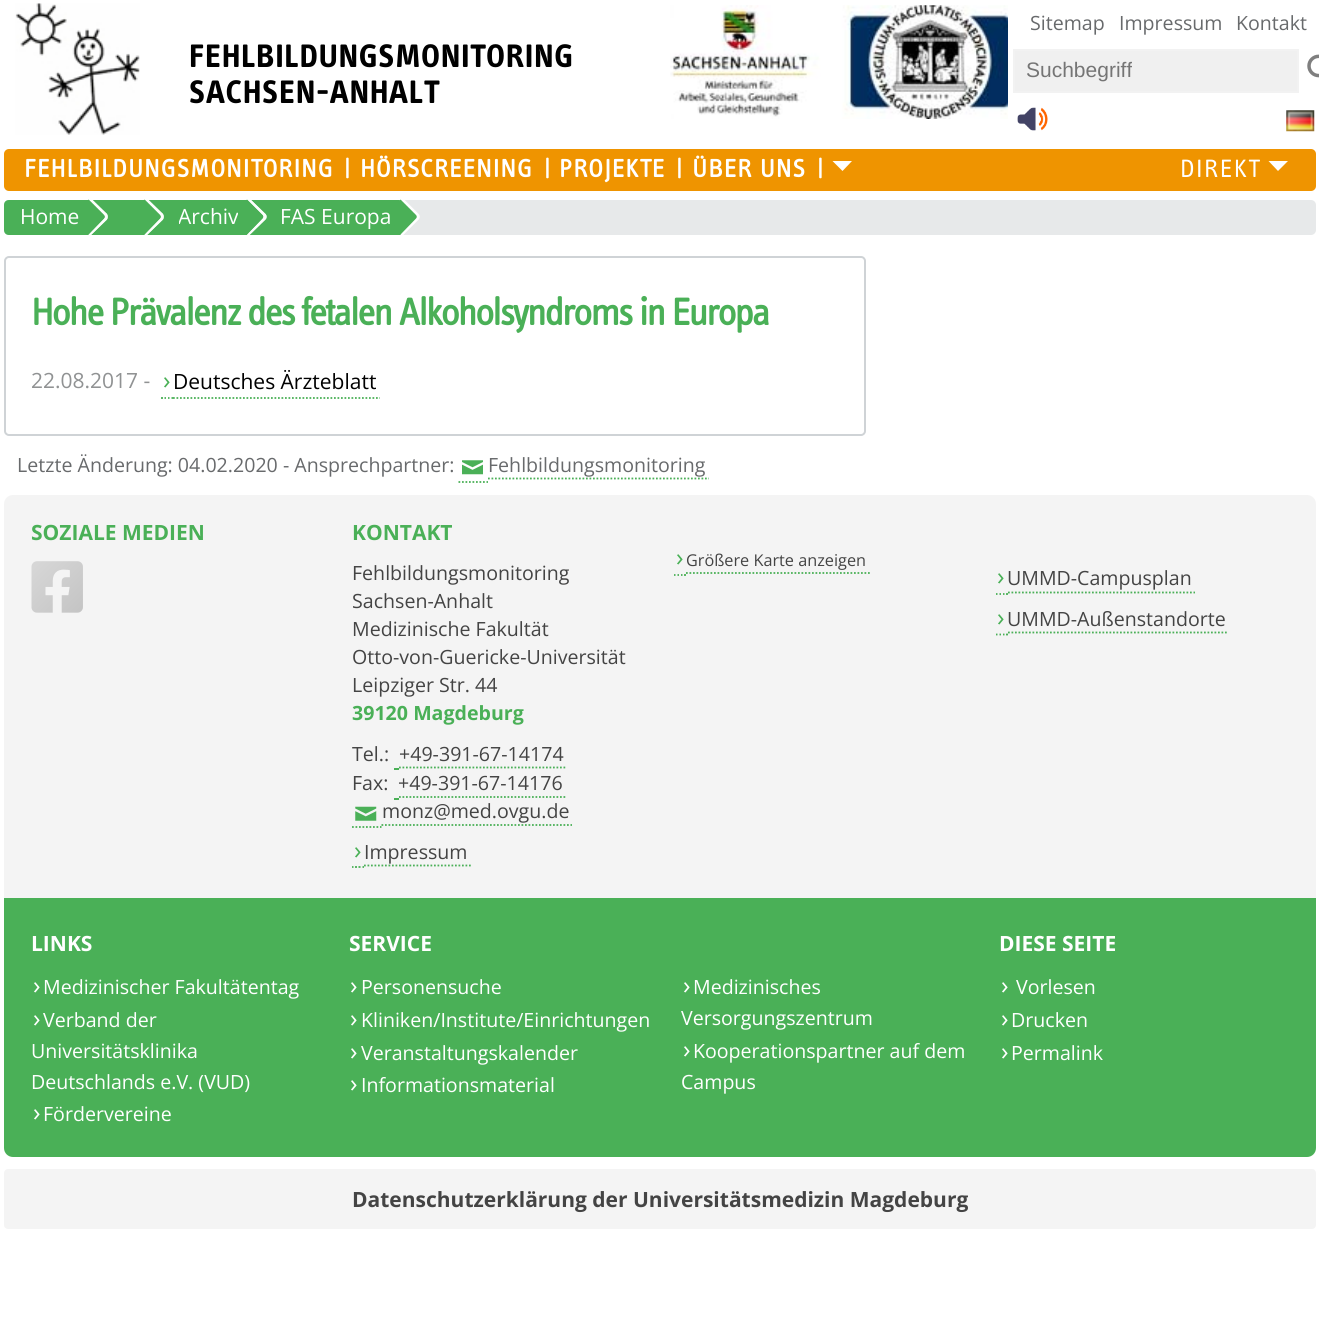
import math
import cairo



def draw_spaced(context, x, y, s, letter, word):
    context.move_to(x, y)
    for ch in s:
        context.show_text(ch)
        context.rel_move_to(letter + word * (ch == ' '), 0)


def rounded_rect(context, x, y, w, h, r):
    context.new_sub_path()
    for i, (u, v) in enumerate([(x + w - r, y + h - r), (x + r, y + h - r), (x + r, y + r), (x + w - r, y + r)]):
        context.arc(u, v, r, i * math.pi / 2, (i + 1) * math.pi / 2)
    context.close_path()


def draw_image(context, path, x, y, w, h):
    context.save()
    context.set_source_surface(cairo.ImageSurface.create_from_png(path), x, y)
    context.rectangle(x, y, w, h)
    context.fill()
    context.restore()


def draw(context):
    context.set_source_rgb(1, 1, 1)
    context.paint()
    draw_image(context, "images/1.png", 15, 3, 125, 132)
    draw_image(context, "images/2.png", 670, 5, 338, 114)
    context.set_source_rgb(240 / 255, 240 / 255, 240 / 255)
    context.rectangle(1014, 50, 284, 42)
    context.fill_preserve()
    context.set_source_rgb(242 / 255, 242 / 255, 242 / 255)
    context.stroke()
    draw_image(context, "images/3.png", 1307, 54, 12, 24)
    draw_image(context, "images/4.png", 1017, 107, 31, 24)
    draw_image(context, "images/5.png", 1286, 110, 29, 22)
    context.set_source_rgb(239 / 255, 148 / 255, 0)
    rounded_rect(context, 4, 149, 1312, 42, 5)
    context.fill()
    context.set_source_rgb(1, 1, 1)
    context.new_path()
    context.move_to(832.5, 161)
    context.line_to(842.5, 171)
    context.line_to(852, 161)
    context.close_path()
    context.fill()
    context.new_path()
    context.move_to(1268.5, 161)
    context.line_to(1278, 171)
    context.line_to(1288, 161)
    context.close_path()
    context.fill()
    context.set_source_rgb(231 / 255, 233 / 255, 234 / 255)
    rounded_rect(context, 4, 200, 1312, 35, 5)
    context.fill()
    context.set_source_rgb(74 / 255, 176 / 255, 87 / 255)
    context.rectangle(89, 200, 312, 35)
    context.fill()
    context.set_source_rgba(1, 1, 1, 0.9)
    context.new_path()
    context.move_to(146, 197.5)
    context.line_to(144.5, 199.5)
    context.line_to(160, 215)
    context.curve_to(161, 216, 161, 217.5, 160, 218.5)
    context.line_to(144.5, 234.5)
    context.line_to(146, 236)
    context.line_to(163, 219.5)
    context.curve_to(164, 218, 164, 215.5, 163, 214)
    context.close_path()
    context.fill()
    context.new_path()
    context.move_to(146, 197.5)
    context.line_to(144.5, 199.5)
    context.line_to(160, 215)
    context.curve_to(161, 216, 161, 217.5, 160, 218.5)
    context.line_to(144.5, 234.5)
    context.line_to(146, 236)
    context.line_to(163, 219.5)
    context.curve_to(164, 218, 164, 215.5, 163, 214)
    context.close_path()
    context.fill()
    context.set_source_rgb(74 / 255, 176 / 255, 87 / 255)
    context.new_path()
    context.move_to(144.5, 199.5)
    context.line_to(160, 215)
    context.curve_to(161, 216, 161, 217.5, 160, 218.5)
    context.line_to(144.5, 234.5)
    context.curve_to(134.5, 224.5, 134.5, 209, 144.5, 199.5)
    context.close_path()
    context.fill()
    context.new_path()
    context.move_to(9, 200)
    context.line_to(89, 200)
    context.line_to(89, 235)
    context.line_to(9, 235)
    context.curve_to(6, 235, 4, 233, 4, 230)
    context.line_to(4, 205)
    context.curve_to(4, 202, 6, 200, 9, 200)
    context.close_path()
    context.fill()
    context.set_source_rgba(1, 1, 1, 0.9)
    context.new_path()
    context.move_to(90, 197.5)
    context.line_to(88.5, 199.5)
    context.line_to(104, 215)
    context.curve_to(105, 216, 105, 217.5, 104, 218.5)
    context.line_to(88.5, 234.5)
    context.line_to(90, 236)
    context.line_to(107, 219.5)
    context.curve_to(108, 218, 108, 215.5, 107, 214)
    context.close_path()
    context.fill()
    context.new_path()
    context.move_to(90, 197.5)
    context.line_to(88.5, 199.5)
    context.line_to(104, 215)
    context.curve_to(105, 216, 105, 217.5, 104, 218.5)
    context.line_to(88.5, 234.5)
    context.line_to(90, 236)
    context.line_to(107, 219.5)
    context.curve_to(108, 218, 108, 215.5, 107, 214)
    context.close_path()
    context.fill()
    context.set_source_rgb(74 / 255, 176 / 255, 87 / 255)
    context.new_path()
    context.move_to(88.5, 199.5)
    context.line_to(104, 215)
    context.curve_to(105, 216, 105, 217.5, 104, 218.5)
    context.line_to(88.5, 234.5)
    context.curve_to(78.5, 224.5, 78.5, 209, 88.5, 199.5)
    context.close_path()
    context.fill()
    context.set_source_rgba(1, 1, 1, 0.9)
    context.new_path()
    context.move_to(248.5, 197.5)
    context.line_to(247, 199.5)
    context.line_to(262.5, 215)
    context.curve_to(263.5, 216, 263.5, 217.5, 262.5, 218.5)
    context.line_to(247, 234.5)
    context.line_to(248.5, 236)
    context.line_to(265.5, 219.5)
    context.curve_to(267, 218, 267, 215.5, 265.5, 214)
    context.close_path()
    context.fill()
    context.new_path()
    context.move_to(248.5, 197.5)
    context.line_to(247, 199.5)
    context.line_to(262.5, 215)
    context.curve_to(263.5, 216, 263.5, 217.5, 262.5, 218.5)
    context.line_to(247, 234.5)
    context.line_to(248.5, 236)
    context.line_to(265.5, 219.5)
    context.curve_to(267, 218, 267, 215.5, 265.5, 214)
    context.close_path()
    context.fill()
    context.set_source_rgb(74 / 255, 176 / 255, 87 / 255)
    context.new_path()
    context.move_to(247, 199.5)
    context.line_to(262.5, 215)
    context.curve_to(263.5, 216, 263.5, 217.5, 262.5, 218.5)
    context.line_to(247, 234.5)
    context.curve_to(237.5, 224.5, 237.5, 209, 247, 199.5)
    context.close_path()
    context.fill()
    context.set_source_rgba(1, 1, 1, 0.9)
    context.new_path()
    context.move_to(402, 197.5)
    context.line_to(399, 201)
    context.line_to(400.5, 199.5)
    context.line_to(416, 215)
    context.curve_to(417, 216, 417, 217.5, 416, 218.5)
    context.line_to(400.5, 234.5)
    context.line_to(402, 236)
    context.line_to(418.5, 219.5)
    context.curve_to(420, 218, 420, 215.5, 418.5, 214)
    context.close_path()
    context.fill()
    context.new_path()
    context.move_to(402, 197.5)
    context.line_to(399, 201)
    context.line_to(400.5, 199.5)
    context.line_to(416, 215)
    context.curve_to(417, 216, 417, 217.5, 416, 218.5)
    context.line_to(400.5, 234.5)
    context.line_to(402, 236)
    context.line_to(418.5, 219.5)
    context.curve_to(420, 218, 420, 215.5, 418.5, 214)
    context.close_path()
    context.fill()
    context.set_source_rgb(74 / 255, 176 / 255, 87 / 255)
    context.new_path()
    context.move_to(400.5, 199.5)
    context.line_to(416, 215)
    context.curve_to(417, 216, 417, 217.5, 416, 218.5)
    context.line_to(400.5, 234.5)
    context.curve_to(390.5, 224.5, 390.5, 209, 400.5, 199.5)
    context.close_path()
    context.fill()
    rounded_rect(context, 5, 257, 860, 178, 4)
    context.set_source_rgb(207 / 255, 211 / 255, 214 / 255)
    context.stroke()
    context.new_path()
    context.move_to(161, 398)
    context.line_to(163, 398)
    context.move_to(164.5, 398)
    context.line_to(166, 398)
    context.move_to(168, 398)
    context.line_to(169.5, 398)
    context.move_to(171.5, 398)
    context.line_to(173, 398)
    context.set_source_rgb(74 / 255, 176 / 255, 87 / 255)
    context.set_line_width(1.8)
    context.stroke()
    context.new_path()
    context.move_to(173, 398)
    context.line_to(380, 398)
    context.set_dash([1.75, 1.75])
    context.stroke()
    context.new_path()
    context.move_to(458.5, 482)
    context.line_to(488, 482)
    context.stroke()
    context.new_path()
    context.move_to(488, 478.5)
    context.line_to(709, 478.5)
    context.stroke()
    draw_image(context, "images/6.png", 462, 460, 21, 15)
    context.set_source_rgb(244 / 255, 244 / 255, 244 / 255)
    context.new_path()
    context.move_to(13, 495)
    context.line_to(1307, 495)
    context.curve_to(1312, 495, 1316, 499, 1316, 504)
    context.line_to(1316, 898)
    context.line_to(4, 898)
    context.line_to(4, 504)
    context.curve_to(4, 499, 8, 495, 13, 495)
    context.close_path()
    context.fill()
    draw_image(context, "images/7.png", 31, 561, 52, 52)
    context.set_source_rgb(74 / 255, 176 / 255, 87 / 255)
    context.rectangle(394, 768, 5, 2)
    context.fill()
    context.new_path()
    context.move_to(399, 767.5)
    context.line_to(567, 767.5)
    context.stroke()
    context.rectangle(394, 798, 5, 2)
    context.fill()
    context.new_path()
    context.move_to(399, 797)
    context.line_to(567, 797)
    context.stroke()
    context.new_path()
    context.move_to(352, 827)
    context.line_to(381.5, 827)
    context.stroke()
    context.new_path()
    context.move_to(381.5, 825)
    context.line_to(572, 825)
    context.stroke()
    draw_image(context, "images/8.png", 355, 806, 22, 15)
    context.new_path()
    context.move_to(352, 867)
    context.line_to(353.5, 867)
    context.move_to(355, 867)
    context.line_to(357, 867)
    context.move_to(358.5, 867)
    context.line_to(360.5, 867)
    context.move_to(362.5, 867)
    context.line_to(364, 867)
    context.set_dash([])
    context.stroke()
    context.new_path()
    context.move_to(364, 865.5)
    context.line_to(471, 865.5)
    context.set_dash([1.75, 1.75])
    context.stroke()
    context.new_path()
    context.move_to(674, 575)
    context.line_to(675.5, 575)
    context.move_to(677.5, 575)
    context.line_to(679, 575)
    context.move_to(681, 575)
    context.line_to(682.5, 575)
    context.move_to(684, 575)
    context.line_to(686, 575)
    context.set_dash([])
    context.stroke()
    context.new_path()
    context.move_to(686, 573)
    context.line_to(870, 573)
    context.set_dash([1.75, 1.75])
    context.stroke()
    context.new_path()
    context.move_to(996, 594)
    context.line_to(997.5, 594)
    context.move_to(999.5, 594)
    context.line_to(1001, 594)
    context.move_to(1003, 594)
    context.line_to(1004.5, 594)
    context.move_to(1006, 594)
    context.line_to(1008, 594)
    context.set_dash([])
    context.stroke()
    context.new_path()
    context.move_to(1008, 592.5)
    context.line_to(1195, 592.5)
    context.set_dash([1.75, 1.75])
    context.stroke()
    context.new_path()
    context.move_to(996, 634.5)
    context.line_to(997.5, 634.5)
    context.move_to(999.5, 634.5)
    context.line_to(1001, 634.5)
    context.move_to(1003, 634.5)
    context.line_to(1004.5, 634.5)
    context.move_to(1006, 634.5)
    context.line_to(1008, 634.5)
    context.set_dash([])
    context.stroke()
    context.new_path()
    context.move_to(1008, 632.5)
    context.line_to(1228.5, 632.5)
    context.set_dash([1.75, 1.75])
    context.stroke()
    context.new_path()
    context.move_to(4, 898)
    context.line_to(1316, 898)
    context.line_to(1316, 1148)
    context.curve_to(1316, 1153, 1312, 1157, 1307, 1157)
    context.line_to(13, 1157)
    context.curve_to(8, 1157, 4, 1153, 4, 1148)
    context.close_path()
    context.fill()
    context.set_source_rgb(244 / 255, 244 / 255, 244 / 255)
    rounded_rect(context, 4, 1169, 1312, 60, 4)
    context.fill()
    context.select_font_face("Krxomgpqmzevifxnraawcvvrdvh", cairo.FontSlant.NORMAL, cairo.FontWeight.BOLD)
    context.set_font_size(33.6)
    context.set_source_rgb(0, 0, 0)
    draw_spaced(context, 189, 67, "FEHLBILDUNGSMONITORING", 0.6, 0)
    draw_spaced(context, 189, 103, "SACHSEN-ANHALT", 0.6, 0)
    context.select_font_face("Open Sans")
    context.set_font_size(19.6)
    context.set_source_rgb(104 / 255, 106 / 255, 108 / 255)
    context.move_to(1030, 30)
    context.show_text("Sitemap")
    context.move_to(1119, 30)
    context.show_text("Impressum")
    context.move_to(1236, 30)
    context.show_text("Kontakt")
    context.select_font_face("Liberation Sans")
    context.set_font_size(21)
    context.set_source_rgb(117 / 255, 117 / 255, 117 / 255)
    context.move_to(1026, 77)
    context.show_text("Suchbegriff")
    context.select_font_face("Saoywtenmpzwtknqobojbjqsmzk", cairo.FontSlant.NORMAL, cairo.FontWeight.BOLD)
    context.set_font_size(25.9)
    context.set_source_rgb(1, 1, 1)
    draw_spaced(context, 24, 177, "FEHLBILDUNGSMONITORING", 1, 0)
    draw_spaced(context, 344, 177, "|", 1, 0)
    draw_spaced(context, 360, 177, "HÖRSCREENING", 1, 0)
    draw_spaced(context, 544, 177, "|", 1, 0)
    draw_spaced(context, 559, 177, "PROJEKTE", 1, 0)
    draw_spaced(context, 676, 177, "|", 1, 0)
    draw_spaced(context, 692, 177, "ÜBER UNS", 1, 0)
    draw_spaced(context, 817, 177, "|", 1.5, 0)
    context.select_font_face("Saoywtenmpzwtknqobojbjqsmzk")
    draw_spaced(context, 1180, 177, "DIREKT", 1.5, 0)
    context.select_font_face("Open Sans")
    context.set_font_size(21)
    context.move_to(20, 224)
    context.show_text("Home")
    context.save()
    context.rectangle(179, 200, 59, 35)
    context.clip()
    context.move_to(178, 224)
    context.show_text("Archiv")
    context.restore()
    context.move_to(280, 224)
    context.show_text("FAS Europa")
    context.select_font_face("Saoywtenmpzwtknqobojbjqsmzk", cairo.FontSlant.NORMAL, cairo.FontWeight.BOLD)
    context.set_font_size(39.25)
    context.set_source_rgb(74 / 255, 176 / 255, 87 / 255)
    draw_spaced(context, 31, 325, "Hohe Prävalenz des fetalen Alkoholsyndroms in Europa", -2.2, 0)
    context.select_font_face("Open Sans")
    context.set_font_size(21)
    context.set_source_rgb(144 / 255, 146 / 255, 147 / 255)
    context.move_to(31, 388)
    context.show_text("22.08.2017 -")
    context.set_font_size(25)
    context.set_source_rgb(74 / 255, 176 / 255, 87 / 255)
    context.move_to(163, 389)
    context.show_text("›")
    context.set_font_size(21)
    context.set_source_rgb(0, 0, 0)
    context.move_to(173, 389)
    context.show_text("Deutsches Ärzteblatt")
    context.set_font_size(19.6)
    context.set_source_rgb(104 / 255, 106 / 255, 108 / 255)
    context.move_to(17, 472)
    context.show_text("Letzte Änderung: 04.02.2020 - Ansprechpartner:")
    context.move_to(488, 472)
    context.show_text("Fehlbildungsmonitoring")
    context.select_font_face("Open Sans", cairo.FontSlant.NORMAL, cairo.FontWeight.BOLD)
    context.set_font_size(21)
    context.set_source_rgb(74 / 255, 176 / 255, 87 / 255)
    context.move_to(31, 540)
    context.show_text("SOZIALE MEDIEN")
    context.move_to(352, 540)
    context.show_text("KONTAKT")
    context.select_font_face("Open Sans")
    context.set_font_size(19.6)
    context.set_source_rgb(68 / 255, 68 / 255, 68 / 255)
    context.move_to(352, 580)
    context.show_text("Fehlbildungsmonitoring")
    context.move_to(352, 608)
    context.show_text("Sachsen-Anhalt")
    context.move_to(352, 636)
    context.show_text("Medizinische Fakultät")
    context.move_to(352, 664)
    context.show_text("Otto-von-Guericke-Universität")
    context.move_to(352, 692)
    context.show_text("Leipziger Str. 44")
    context.select_font_face("Open Sans", cairo.FontSlant.NORMAL, cairo.FontWeight.BOLD)
    context.set_source_rgb(74 / 255, 176 / 255, 87 / 255)
    context.move_to(352, 720)
    context.show_text("39120 Magdeburg")
    context.select_font_face("Open Sans")
    context.set_source_rgb(68 / 255, 68 / 255, 68 / 255)
    context.move_to(352, 761)
    context.show_text("Tel.:")
    context.move_to(399, 761)
    context.show_text("+49-391-67-14174")
    context.move_to(352, 790)
    context.show_text("Fax:")
    context.move_to(398, 790)
    context.show_text("+49-391-67-14176")
    context.move_to(382, 818)
    context.show_text("monz@med.ovgu.de")
    context.set_font_size(25)
    context.set_source_rgb(74 / 255, 176 / 255, 87 / 255)
    context.move_to(354, 859)
    context.show_text("›")
    context.set_font_size(19.6)
    context.set_source_rgb(68 / 255, 68 / 255, 68 / 255)
    context.move_to(364, 859)
    context.show_text("Impressum")
    context.set_font_size(25)
    context.set_source_rgb(74 / 255, 176 / 255, 87 / 255)
    context.move_to(676, 566)
    context.show_text("›")
    context.set_font_size(16.25)
    context.set_source_rgb(68 / 255, 68 / 255, 68 / 255)
    context.move_to(686, 566)
    context.show_text("Größere Karte anzeigen")
    context.set_font_size(25)
    context.set_source_rgb(74 / 255, 176 / 255, 87 / 255)
    context.move_to(997, 585)
    context.show_text("›")
    context.set_font_size(19.6)
    context.set_source_rgb(68 / 255, 68 / 255, 68 / 255)
    context.move_to(1007, 585)
    context.show_text("UMMD-Campusplan")
    context.set_font_size(25)
    context.set_source_rgb(74 / 255, 176 / 255, 87 / 255)
    context.move_to(997, 626)
    context.show_text("›")
    context.set_font_size(19.6)
    context.set_source_rgb(68 / 255, 68 / 255, 68 / 255)
    context.move_to(1007, 626)
    context.show_text("UMMD-Außenstandorte")
    context.select_font_face("Open Sans", cairo.FontSlant.NORMAL, cairo.FontWeight.BOLD)
    context.set_font_size(21)
    context.set_source_rgb(1, 1, 1)
    context.move_to(31, 951)
    context.show_text("LINKS")
    context.select_font_face("Open Sans")
    context.set_font_size(25)
    context.move_to(33, 994)
    context.show_text("›")
    context.set_font_size(19.6)
    context.move_to(43, 994)
    context.show_text("Medizinischer Fakultätentag")
    context.set_font_size(25)
    context.move_to(33, 1027)
    context.show_text("›")
    context.set_font_size(19.6)
    context.move_to(43, 1027)
    context.show_text("Verband der")
    context.move_to(31, 1058)
    context.show_text("Universitätsklinika")
    context.move_to(31, 1089)
    context.show_text("Deutschlands e.V. (VUD)")
    context.set_font_size(25)
    context.move_to(33, 1121)
    context.show_text("›")
    context.set_font_size(19.6)
    context.move_to(43, 1121)
    context.show_text("Fördervereine")
    context.select_font_face("Open Sans", cairo.FontSlant.NORMAL, cairo.FontWeight.BOLD)
    context.set_font_size(21)
    context.move_to(349, 951)
    context.show_text("SERVICE")
    context.select_font_face("Open Sans")
    context.set_font_size(25)
    context.move_to(350, 994)
    context.show_text("›")
    context.set_font_size(19.6)
    context.move_to(361, 994)
    context.show_text("Personensuche")
    context.set_font_size(25)
    context.move_to(350, 1027)
    context.show_text("›")
    context.set_font_size(19.6)
    context.move_to(361, 1027)
    context.show_text("Kliniken/Institute/Einrichtungen")
    context.set_font_size(25)
    context.move_to(350, 1060)
    context.show_text("›")
    context.set_font_size(19.6)
    context.move_to(361, 1060)
    context.show_text("Veranstaltungskalender")
    context.set_font_size(25)
    context.move_to(350, 1092)
    context.show_text("›")
    context.set_font_size(19.6)
    context.move_to(361, 1092)
    context.show_text("Informationsmaterial")
    context.set_font_size(25)
    context.move_to(683, 994)
    context.show_text("›")
    context.set_font_size(19.6)
    context.move_to(693, 994)
    context.show_text("Medizinisches")
    context.move_to(681, 1025)
    context.show_text("Versorgungszentrum")
    context.set_font_size(25)
    context.move_to(683, 1058)
    context.show_text("›")
    context.set_font_size(19.6)
    context.move_to(693, 1058)
    context.show_text("Kooperationspartner auf dem")
    context.move_to(681, 1089)
    context.show_text("Campus")
    context.select_font_face("Open Sans", cairo.FontSlant.NORMAL, cairo.FontWeight.BOLD)
    context.set_font_size(21)
    context.move_to(999, 951)
    context.show_text("DIESE SEITE")
    context.select_font_face("Open Sans")
    context.set_font_size(25)
    context.move_to(1001, 994)
    context.show_text("›")
    context.set_font_size(19.6)
    context.move_to(1016, 994)
    context.show_text("Vorlesen")
    context.set_font_size(25)
    context.move_to(1001, 1027)
    context.show_text("›")
    context.set_font_size(19.6)
    context.move_to(1011, 1027)
    context.show_text("Drucken")
    context.set_font_size(25)
    context.move_to(1001, 1060)
    context.show_text("›")
    context.set_font_size(19.6)
    context.move_to(1011, 1060)
    context.show_text("Permalink")
    context.select_font_face("Open Sans", cairo.FontSlant.NORMAL, cairo.FontWeight.BOLD)
    context.set_font_size(21)
    context.set_source_rgb(68 / 255, 68 / 255, 68 / 255)
    context.move_to(352, 1207)
    context.show_text("Datenschutzerklärung der Universitätsmedizin Magdeburg")


surface = cairo.ImageSurface(cairo.Format.RGB24, 1319, 1334)
context = cairo.Context(surface)
options = cairo.FontOptions()
options.set_hint_metrics(cairo.HintMetrics.OFF)
options.set_hint_style(cairo.HintStyle.NONE)
context.set_font_options(options)
context.set_miter_limit(4)
draw(context)
surface.write_to_png("out.png")
